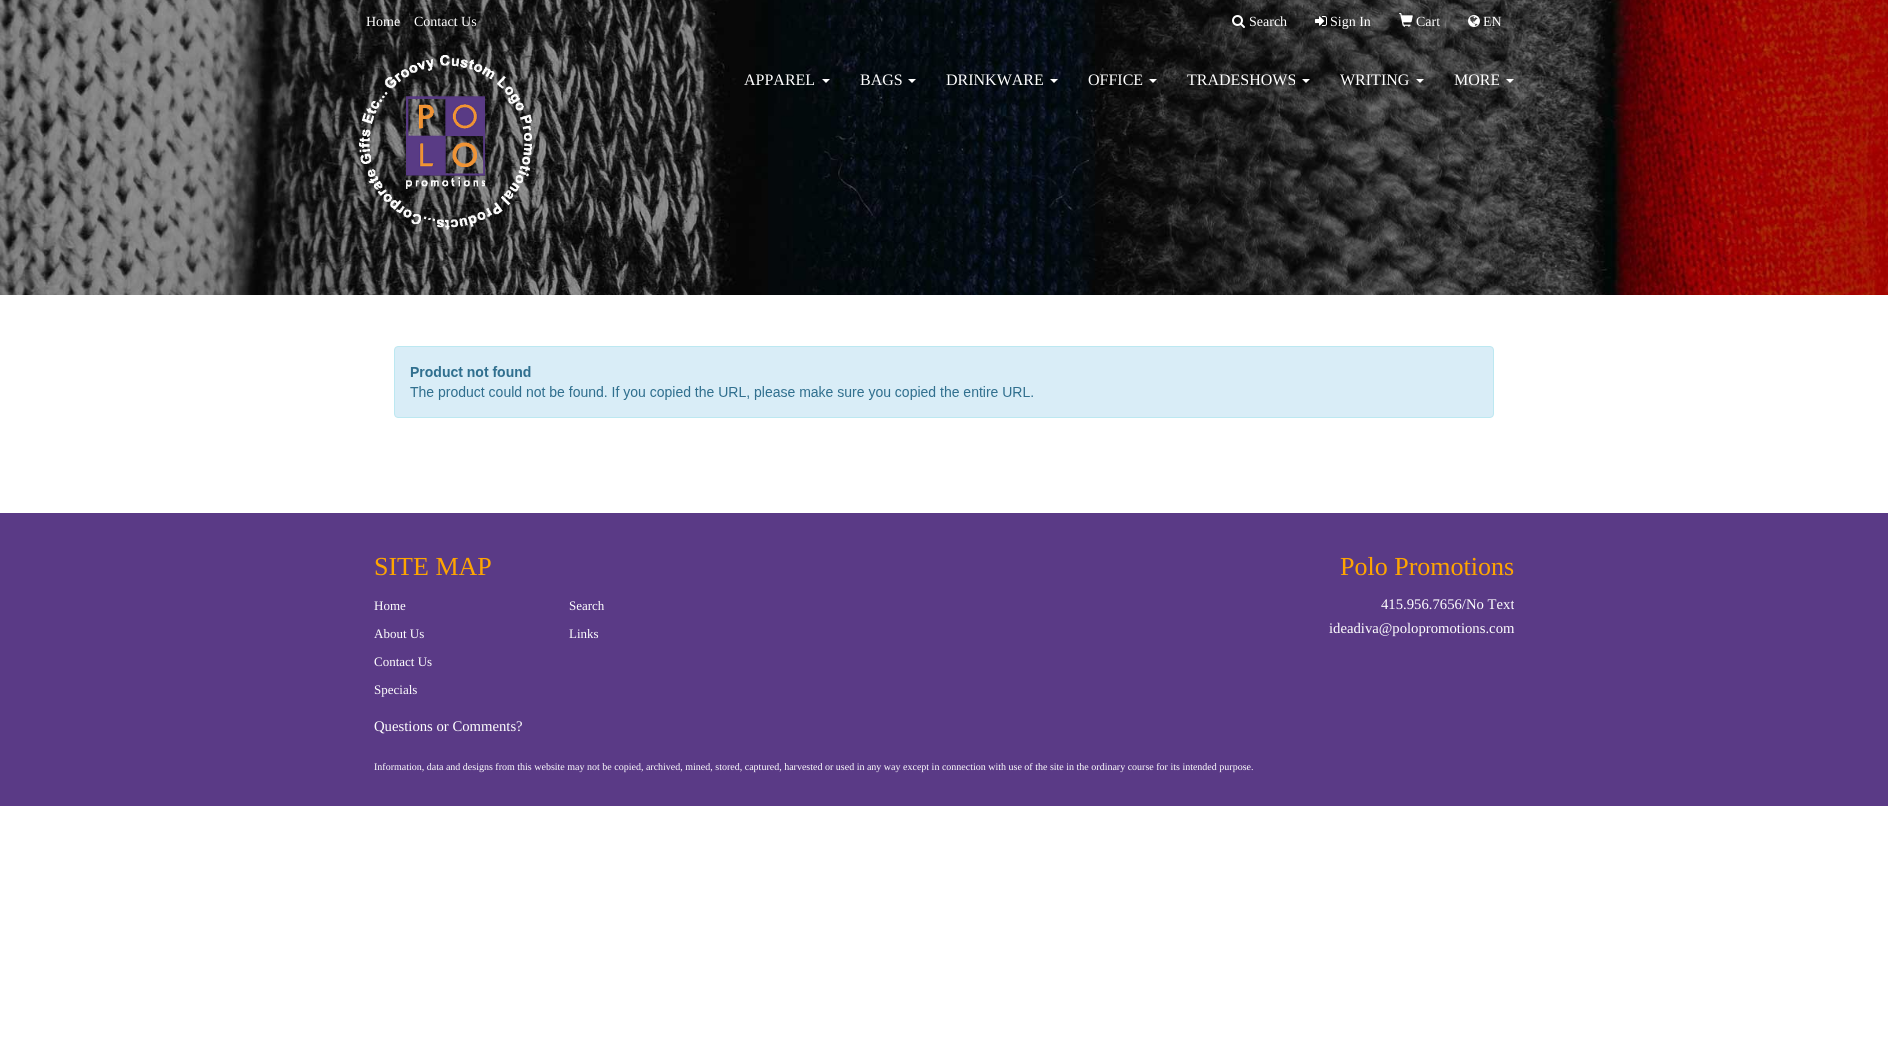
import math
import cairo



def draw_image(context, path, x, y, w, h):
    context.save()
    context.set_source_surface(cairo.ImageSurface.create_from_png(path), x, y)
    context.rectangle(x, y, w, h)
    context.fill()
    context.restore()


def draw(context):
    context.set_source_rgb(1, 1, 1)
    context.paint()
    draw_image(context, "images/1.png", 0, 0, 1888, 295)
    draw_image(context, "images/2.png", 1232, 15, 13, 13)
    draw_image(context, "images/3.png", 1315, 16, 12, 10)
    draw_image(context, "images/4.png", 1399, 13, 14, 14)
    draw_image(context, "images/5.png", 1468, 15, 12, 12)
    draw_image(context, "images/6.png", 359, 55, 173, 175)
    context.set_source_rgb(1, 1, 1)
    context.new_path()
    context.move_to(822, 79)
    context.line_to(830, 79)
    context.line_to(826, 83)
    context.close_path()
    context.fill()
    context.new_path()
    context.move_to(908, 79)
    context.line_to(916, 79)
    context.line_to(912, 83)
    context.close_path()
    context.fill()
    context.new_path()
    context.move_to(1050, 79)
    context.line_to(1058, 79)
    context.line_to(1054, 83)
    context.close_path()
    context.fill()
    context.new_path()
    context.move_to(1149, 79)
    context.line_to(1157, 79)
    context.line_to(1153, 83)
    context.close_path()
    context.fill()
    context.new_path()
    context.move_to(1302, 79)
    context.line_to(1310, 79)
    context.line_to(1306, 83)
    context.close_path()
    context.fill()
    context.new_path()
    context.move_to(1416, 79)
    context.line_to(1424, 79)
    context.line_to(1420, 83)
    context.close_path()
    context.fill()
    context.new_path()
    context.move_to(1506, 79)
    context.line_to(1514, 79)
    context.line_to(1510, 83)
    context.close_path()
    context.fill()
    draw_image(context, "images/7.png", 394, 346, 1100, 72)
    context.set_source_rgb(90 / 255, 58 / 255, 134 / 255)
    context.rectangle(0, 513, 1888, 293)
    context.fill()
    context.select_font_face("Liberation Serif")
    context.set_font_size(14)
    context.set_source_rgb(1, 1, 1)
    context.move_to(366, 26)
    context.show_text("Home")
    context.move_to(414, 26)
    context.show_text("Contact Us")
    context.move_to(1249, 26)
    context.show_text("Search")
    context.move_to(1330, 26)
    context.show_text("Sign In")
    context.move_to(1416, 26)
    context.show_text("Cart")
    context.move_to(1483, 26)
    context.show_text("EN")
    context.set_font_size(16)
    context.move_to(744, 85)
    context.show_text("APPAREL")
    context.move_to(860, 85)
    context.show_text("BAGS")
    context.move_to(946, 85)
    context.show_text("DRINKWARE")
    context.move_to(1088, 85)
    context.show_text("OFFICE")
    context.move_to(1187, 85)
    context.show_text("TRADESHOWS")
    context.move_to(1340, 85)
    context.show_text("WRITING")
    context.move_to(1454, 85)
    context.show_text("MORE")
    context.set_font_size(26)
    context.set_source_rgb(1, 165 / 255, 0)
    context.move_to(374, 575)
    context.show_text("SITE MAP")
    context.set_font_size(13)
    context.set_source_rgb(1, 1, 1)
    context.move_to(374, 610)
    context.show_text("Home")
    context.move_to(374, 638)
    context.show_text("About Us")
    context.move_to(374, 666)
    context.show_text("Contact Us")
    context.move_to(374, 694)
    context.show_text("Specials")
    context.move_to(569, 610)
    context.show_text("Search")
    context.move_to(569, 638)
    context.show_text("Links")
    context.set_font_size(14.7)
    context.move_to(374, 731)
    context.show_text("Questions or Comments?")
    context.set_font_size(26)
    context.set_source_rgb(1, 165 / 255, 0)
    context.move_to(1340, 575)
    context.show_text("Polo Promotions")
    context.set_font_size(14.7)
    context.set_source_rgb(1, 1, 1)
    context.move_to(1381, 609)
    context.show_text("415.956.7656/No Text")
    context.move_to(1329, 633)
    context.show_text("ideadiva@polopromotions.com")
    context.set_font_size(10)
    context.move_to(374, 770)
    context.show_text("Information, data and designs from this website may not be copied, archived, mined, stored, captured, harvested or used in any way except in connection with use of the site in the ordinary course for its intended purpose.")


surface = cairo.ImageSurface(cairo.Format.RGB24, 1888, 1040)
context = cairo.Context(surface)
options = cairo.FontOptions()
options.set_hint_metrics(cairo.HintMetrics.OFF)
options.set_hint_style(cairo.HintStyle.NONE)
context.set_font_options(options)
context.set_miter_limit(4)
draw(context)
surface.write_to_png("out.png")
